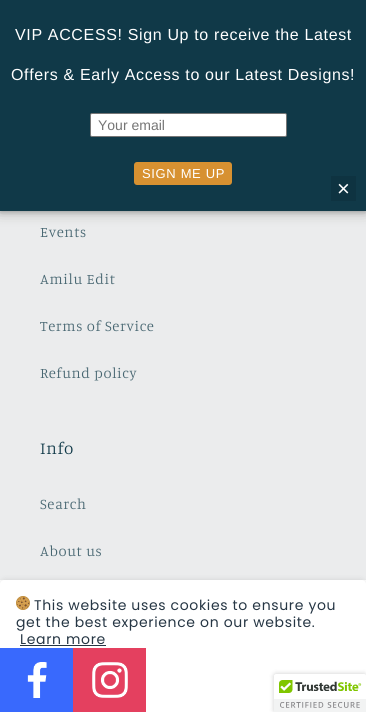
import math
import cairo



def draw_spaced(context, x, y, s, letter, word):
    context.move_to(x, y)
    for ch in s:
        context.show_text(ch)
        context.rel_move_to(letter + word * (ch == ' '), 0)


def rounded_rect(context, x, y, w, h, r):
    context.new_sub_path()
    for i, (u, v) in enumerate([(x + w - r, y + h - r), (x + r, y + h - r), (x + r, y + r), (x + w - r, y + r)]):
        context.arc(u, v, r, i * math.pi / 2, (i + 1) * math.pi / 2)
    context.close_path()


def draw_shadow(context, x, y, w, h, r, blur, alpha):
    context.push_group_with_content(cairo.Content.ALPHA)
    context.set_operator(cairo.Operator.SOURCE)
    for i in range(15, -16, -2):
        e = blur * i / 6
        if min(w, h) + 2 * e > 0:
            context.set_source_rgba(0, 0, 0, alpha * math.erfc((i - 1) / 8.5) / 2)
            rounded_rect(context, x - e, y - e, w + 2 * e, h + 2 * e, max(0, min(r + e + blur * .6, min(w, h) / 2 + e)))
            context.fill()
    context.mask(context.pop_group())


def draw_image(context, path, x, y, w, h):
    context.save()
    context.set_source_surface(cairo.ImageSurface.create_from_png(path), x, y)
    context.rectangle(x, y, w, h)
    context.fill()
    context.restore()


def draw(context):
    context.set_source_rgb(235 / 255, 236 / 255, 237 / 255)
    context.paint()
    context.set_source_rgb(0, 0, 0)
    draw_shadow(context, 0, 1, 366, 211, 0, 2.5, 0.2)
    draw_shadow(context, 0, 0, 366, 211, 0, 7.5, 0.3)
    context.set_source_rgb(16 / 255, 57 / 255, 72 / 255)
    context.rectangle(0, 0, 366, 211)
    context.fill()
    context.set_source_rgb(1, 1, 1)
    rounded_rect(context, 90.5, 113.5, 196, 23, 1.5)
    context.fill_preserve()
    context.set_source_rgb(118 / 255, 118 / 255, 118 / 255)
    context.set_line_width(1)
    context.stroke()
    context.set_source_rgb(215 / 255, 145 / 255, 49 / 255)
    rounded_rect(context, 134, 162, 98, 23, 3)
    context.fill()
    context.set_source_rgb(14 / 255, 51 / 255, 65 / 255)
    context.rectangle(331, 176, 25, 25)
    context.fill()
    context.set_source_rgb(1, 1, 1)
    context.rectangle(0, 580, 366, 68)
    context.fill()
    context.save()
    context.set_fill_rule(cairo.FillRule.EVEN_ODD)
    context.new_path()
    context.move_to(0, 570)
    context.line_to(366, 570)
    context.line_to(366, 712)
    context.line_to(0, 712)
    context.close_path()
    context.move_to(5, 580)
    context.line_to(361, 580)
    context.curve_to(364, 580, 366, 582, 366, 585)
    context.line_to(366, 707)
    context.curve_to(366, 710, 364, 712, 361, 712)
    context.line_to(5, 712)
    context.curve_to(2, 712, 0, 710, 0, 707)
    context.line_to(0, 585)
    context.curve_to(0, 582, 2, 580, 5, 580)
    context.close_path()
    context.clip()
    context.set_source_rgb(0, 0, 0)
    draw_shadow(context, 0, 580, 366, 132, 5, 3, 0.12)
    context.restore()
    draw_image(context, "images/1.png", 16, 596, 14, 14)
    context.set_source_rgb(38 / 255, 54 / 255, 68 / 255)
    context.rectangle(20, 645, 86, 1)
    context.fill()
    context.set_source_rgb(1, 1, 1)
    context.rectangle(146, 648, 220, 64)
    context.fill()
    context.set_source_rgb(57 / 255, 105 / 255, 253 / 255)
    context.rectangle(0, 648, 73, 64)
    context.fill()
    draw_image(context, "images/2.png", 27, 662, 20, 36)
    context.set_source_rgb(228 / 255, 64 / 255, 95 / 255)
    context.rectangle(73, 648, 73, 64)
    context.fill()
    draw_image(context, "images/3.png", 92, 662, 36, 36)
    context.set_source_rgb(0, 0, 0)
    draw_shadow(context, 274, 674, 92, 38, 2, 2.5, 0.2)
    context.set_source_rgb(1, 1, 1)
    context.new_path()
    context.move_to(276, 674)
    context.line_to(366, 674)
    context.line_to(366, 712)
    context.line_to(274, 712)
    context.line_to(274, 676)
    context.curve_to(274, 675, 275, 674, 276, 674)
    context.close_path()
    context.fill()
    draw_image(context, "images/4.png", 274, 674, 92, 38)
    context.select_font_face("Liberation Sans")
    context.set_font_size(16)
    draw_spaced(context, 15, 40, "VIP ACCESS! Sign Up to receive the Latest", 0.65, 0)
    draw_spaced(context, 11, 80, "Offers & Early Access to our Latest Designs!", 0.65, 0)
    context.set_font_size(14)
    context.set_source_rgb(117 / 255, 117 / 255, 117 / 255)
    context.move_to(98, 130)
    context.show_text("Your email")
    context.set_font_size(13)
    context.set_source_rgb(1, 1, 1)
    draw_spaced(context, 142, 178, "SIGN ME UP", 0.65, 0)
    context.set_font_size(22)
    draw_spaced(context, 337, 196, "×", 0.65, 0)
    context.select_font_face("Manuale Light")
    context.set_font_size(14.75)
    context.set_source_rgb(71 / 255, 102 / 255, 113 / 255)
    draw_spaced(context, 40, 237, "Events", 0.65, 0)
    draw_spaced(context, 40, 284, "Amilu Edit", 0.65, 0)
    draw_spaced(context, 40, 331, "Terms of Service", 0.65, 0)
    draw_spaced(context, 40, 378, "Refund policy", 0.65, 0)
    context.set_font_size(17)
    context.set_source_rgb(16 / 255, 57 / 255, 72 / 255)
    draw_spaced(context, 40, 454, "Info", 0.65, 0)
    context.set_font_size(14.75)
    context.set_source_rgb(71 / 255, 102 / 255, 113 / 255)
    draw_spaced(context, 40, 509, "Search", 0.65, 0)
    draw_spaced(context, 40, 556, "About us", 0.65, 0)
    context.select_font_face("Poppins")
    context.set_font_size(14)
    context.set_source_rgb(38 / 255, 54 / 255, 68 / 255)
    draw_spaced(context, 34, 610, "This website uses cookies to ensure you", 0.65, 0)
    draw_spaced(context, 16, 627, "get the best experience on our website.", 0.65, 0)
    draw_spaced(context, 20, 644, "Learn more", 0.65, 0)


surface = cairo.ImageSurface(cairo.Format.RGB24, 366, 712)
context = cairo.Context(surface)
options = cairo.FontOptions()
options.set_hint_metrics(cairo.HintMetrics.OFF)
options.set_hint_style(cairo.HintStyle.NONE)
context.set_font_options(options)
context.set_miter_limit(4)
draw(context)
surface.write_to_png("out.png")
